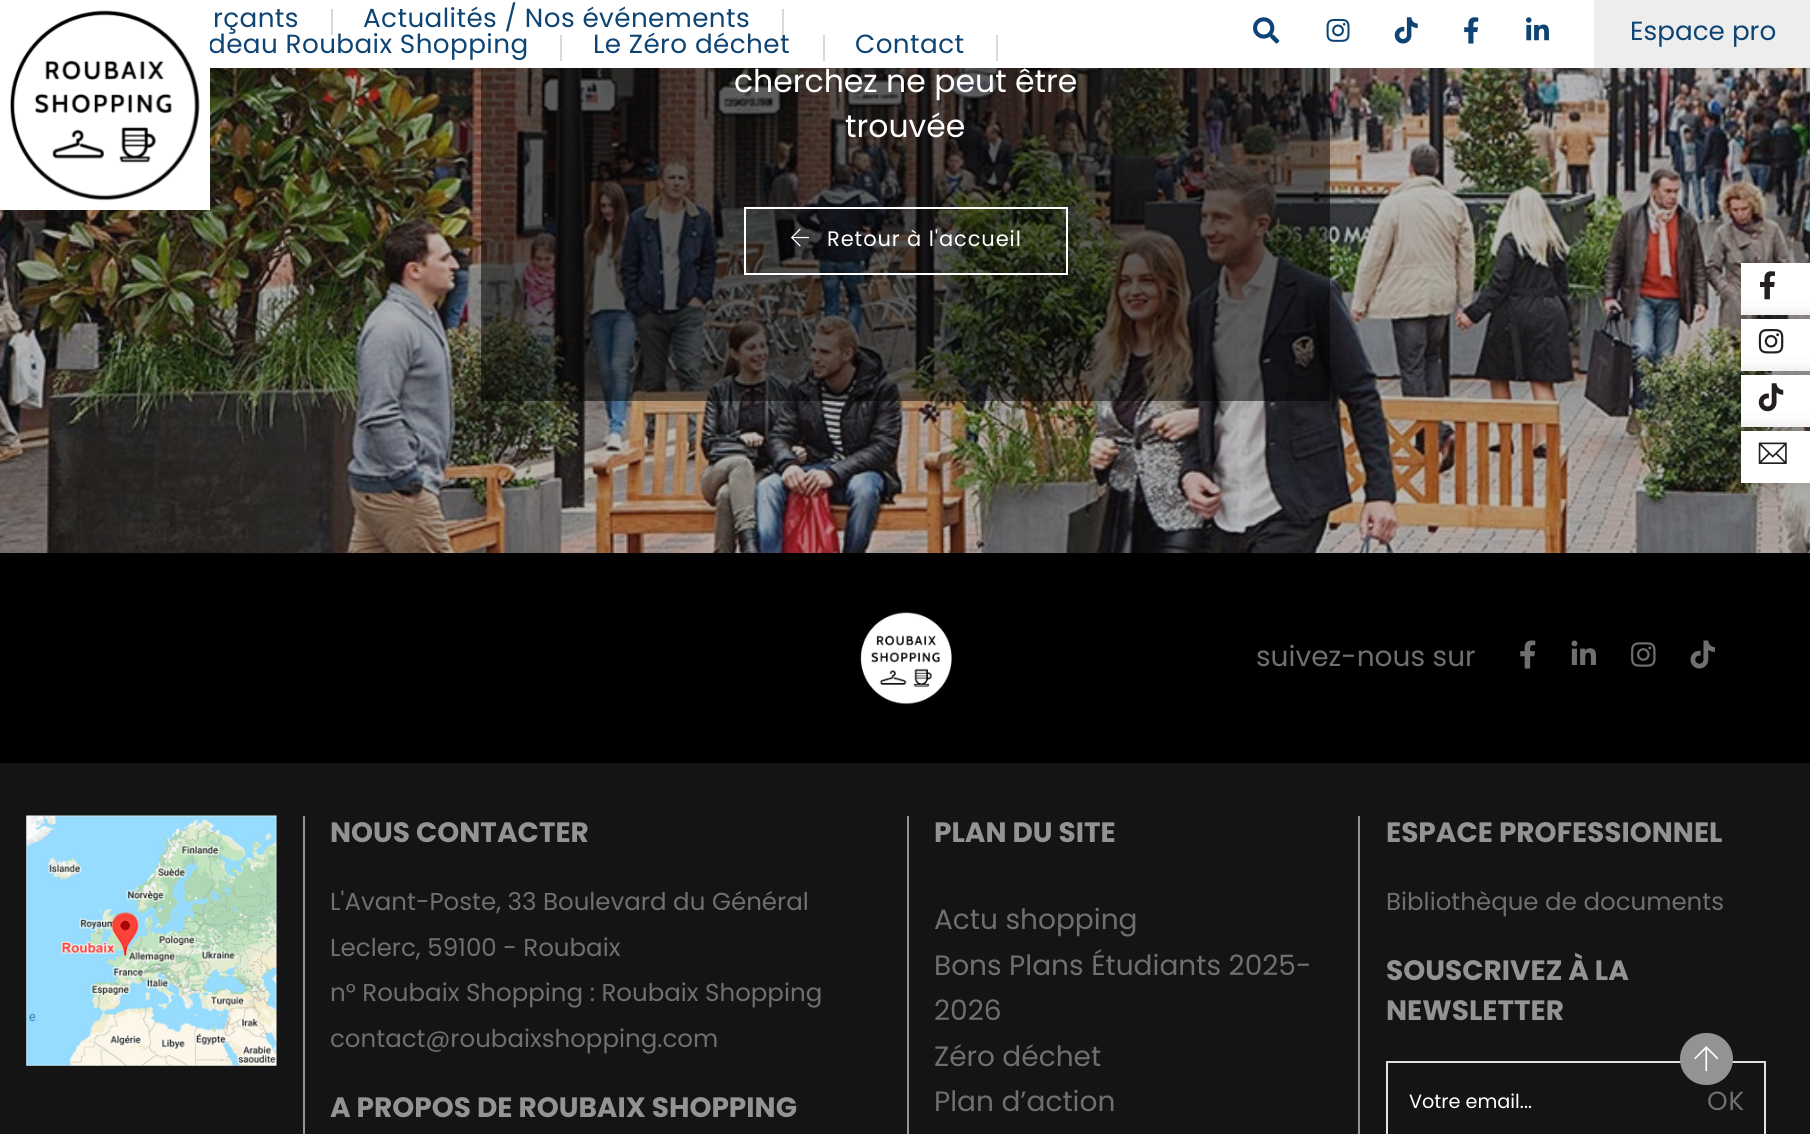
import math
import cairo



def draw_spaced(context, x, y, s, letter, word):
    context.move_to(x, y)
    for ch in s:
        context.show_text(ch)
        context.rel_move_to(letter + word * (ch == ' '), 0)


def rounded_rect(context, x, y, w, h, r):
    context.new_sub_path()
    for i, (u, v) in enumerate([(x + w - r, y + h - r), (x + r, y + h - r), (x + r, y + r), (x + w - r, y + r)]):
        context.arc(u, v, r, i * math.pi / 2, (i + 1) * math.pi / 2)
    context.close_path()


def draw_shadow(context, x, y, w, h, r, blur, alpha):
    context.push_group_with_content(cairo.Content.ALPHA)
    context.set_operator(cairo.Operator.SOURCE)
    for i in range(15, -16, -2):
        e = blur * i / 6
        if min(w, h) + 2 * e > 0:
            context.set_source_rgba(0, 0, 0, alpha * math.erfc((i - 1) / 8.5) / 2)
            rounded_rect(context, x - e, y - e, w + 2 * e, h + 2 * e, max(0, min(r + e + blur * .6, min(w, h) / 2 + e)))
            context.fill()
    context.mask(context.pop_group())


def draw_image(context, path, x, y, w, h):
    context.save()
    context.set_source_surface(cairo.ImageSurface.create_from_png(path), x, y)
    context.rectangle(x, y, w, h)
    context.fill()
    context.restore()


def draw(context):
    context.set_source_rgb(20 / 255, 20 / 255, 20 / 255)
    context.paint()
    context.set_source_rgb(1, 1, 1)
    context.rectangle(210, 0, 1384, 68)
    context.fill()
    context.set_source_rgb(217 / 255, 217 / 255, 217 / 255)
    context.rectangle(331, 9, 2, 26)
    context.fill()
    context.rectangle(782, 9, 2, 26)
    context.fill()
    context.rectangle(560, 35, 2, 26)
    context.fill()
    context.rectangle(823, 35, 2, 26)
    context.fill()
    context.rectangle(996, 35, 2, 26)
    context.fill()
    draw_image(context, "images/2.png", 1253, 17, 27, 27)
    draw_image(context, "images/3.png", 1326, 18, 24, 24)
    draw_image(context, "images/4.png", 1394, 17, 24, 27)
    draw_image(context, "images/5.png", 1464, 17, 15, 27)
    draw_image(context, "images/6.png", 1526, 17, 23, 24)
    context.set_source_rgb(237 / 255, 237 / 255, 237 / 255)
    context.rectangle(1594, 0, 216, 68)
    context.fill()
    draw_image(context, "images/7.png", 0, 68, 1810, 485)
    context.set_source_rgba(0, 0, 0, 0.5)
    context.rectangle(481, 68, 849, 333)
    context.fill()
    context.rectangle(745, 208, 322, 66)
    context.set_source_rgb(1, 1, 1)
    context.stroke()
    draw_image(context, "images/8.png", 790, 228, 19, 19)
    context.set_source_rgb(0, 0, 0)
    draw_shadow(context, 1741, 263, 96, 52, 0, 9, 0.2)
    context.set_source_rgb(1, 1, 1)
    context.rectangle(1741, 263, 69, 52)
    context.fill()
    draw_image(context, "images/9.png", 1760, 271, 15, 29)
    context.set_source_rgb(0, 0, 0)
    draw_shadow(context, 1741, 319, 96, 52, 0, 9, 0.2)
    context.set_source_rgb(1, 1, 1)
    context.rectangle(1741, 319, 69, 52)
    context.fill()
    draw_image(context, "images/10.png", 1758, 329, 26, 25)
    context.set_source_rgb(0, 0, 0)
    draw_shadow(context, 1741, 375, 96, 52, 0, 9, 0.2)
    context.set_source_rgb(1, 1, 1)
    context.rectangle(1741, 375, 69, 52)
    context.fill()
    draw_image(context, "images/11.png", 1758, 383, 26, 29)
    context.set_source_rgb(0, 0, 0)
    draw_shadow(context, 1741, 431, 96, 52, 0, 9, 0.2)
    context.set_source_rgb(1, 1, 1)
    context.rectangle(1741, 431, 69, 52)
    context.fill()
    draw_image(context, "images/12.png", 1758, 442, 29, 22)
    context.set_source_rgb(0, 0, 0)
    context.rectangle(0, 553, 1810, 210)
    context.fill()
    draw_image(context, "images/13.png", 860, 612, 92, 93)
    draw_image(context, "images/14.png", 1520, 640, 16, 29)
    draw_image(context, "images/15.png", 1571, 640, 25, 25)
    draw_image(context, "images/16.png", 1631, 642, 25, 25)
    draw_image(context, "images/17.png", 1690, 640, 25, 29)
    draw_image(context, "images/18.png", 26, 815, 251, 251)
    context.set_source_rgb(147 / 255, 147 / 255, 147 / 255)
    context.rectangle(303, 816, 2, 318)
    context.fill()
    context.rectangle(907, 816, 2, 318)
    context.fill()
    context.rectangle(1358, 816, 2, 318)
    context.fill()
    context.rectangle(1387, 1062, 378, 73)
    context.set_source_rgb(222 / 255, 226 / 255, 230 / 255)
    context.stroke()
    context.set_source_rgb(147 / 255, 147 / 255, 147 / 255)
    rounded_rect(context, 1680, 1033, 53, 52, 26)
    context.fill()
    draw_image(context, "images/19.png", 1694, 1046, 25, 26)
    context.select_font_face("Poppins")
    context.set_font_size(26.25)
    context.set_source_rgb(14 / 255, 68 / 255, 115 / 255)
    draw_spaced(context, 213, 27, "rçants", 0.4, 0)
    draw_spaced(context, 363, 27, "Actualités / Nos événements", 0.4, 0)
    draw_spaced(context, 208, 53, "deau Roubaix Shopping", 0.4, 0)
    context.set_source_rgb(1, 1, 1)
    context.rectangle(0, 0, 210, 210)
    context.fill()
    draw_image(context, "images/1.png", 10, 10, 190, 191)
    context.set_source_rgb(14 / 255, 68 / 255, 115 / 255)
    draw_spaced(context, 593, 53, "Le Zéro déchet", 0.4, 0)
    draw_spaced(context, 855, 53, "Contact", 0.4, 0)
    context.move_to(1630, 40)
    context.show_text("Espace pro")
    context.set_font_size(31.5)
    context.set_source_rgb(1, 1, 1)
    context.move_to(734, 92)
    context.show_text("cherchez ne peut être")
    context.move_to(845, 137)
    context.show_text("trouvée")
    context.set_font_size(21)
    draw_spaced(context, 827, 246, "Retour à l'accueil", 0.9, 0)
    context.set_font_size(28)
    context.set_source_rgb(111 / 255, 111 / 255, 111 / 255)
    context.move_to(1256, 666)
    context.show_text("suivez-nous sur")
    context.select_font_face("Poppins", cairo.FontSlant.NORMAL, cairo.FontWeight.BOLD)
    context.set_source_rgb(147 / 255, 147 / 255, 147 / 255)
    context.move_to(330, 842)
    context.show_text("NOUS CONTACTER")
    context.select_font_face("Poppins")
    context.set_font_size(24.5)
    context.set_source_rgb(111 / 255, 111 / 255, 111 / 255)
    context.move_to(330, 910)
    context.show_text("L'Avant-Poste, 33 Boulevard du Général")
    context.move_to(330, 956)
    context.show_text("Leclerc, 59100 - Roubaix")
    context.move_to(330, 1001)
    context.show_text("n° Roubaix Shopping : Roubaix Shopping")
    context.move_to(330, 1047)
    context.show_text("contact@roubaixshopping.com")
    context.select_font_face("Poppins", cairo.FontSlant.NORMAL, cairo.FontWeight.BOLD)
    context.set_font_size(28)
    context.set_source_rgb(147 / 255, 147 / 255, 147 / 255)
    context.move_to(330, 1117)
    context.show_text("A PROPOS DE ROUBAIX SHOPPING")
    context.move_to(934, 842)
    context.show_text("PLAN DU SITE")
    context.select_font_face("Poppins")
    context.set_source_rgb(111 / 255, 111 / 255, 111 / 255)
    context.move_to(934, 929)
    context.show_text("Actu shopping")
    context.move_to(934, 975)
    context.show_text("Bons Plans Étudiants 2025-")
    context.move_to(934, 1020)
    context.show_text("2026")
    context.move_to(934, 1066)
    context.show_text("Zéro déchet")
    context.move_to(934, 1111)
    context.show_text("Plan d’action")
    context.select_font_face("Poppins", cairo.FontSlant.NORMAL, cairo.FontWeight.BOLD)
    context.set_source_rgb(147 / 255, 147 / 255, 147 / 255)
    context.move_to(1386, 842)
    context.show_text("ESPACE PROFESSIONNEL")
    context.select_font_face("Poppins")
    context.set_font_size(24.5)
    context.set_source_rgb(111 / 255, 111 / 255, 111 / 255)
    context.move_to(1386, 910)
    context.show_text("Bibliothèque de documents")
    context.select_font_face("Poppins", cairo.FontSlant.NORMAL, cairo.FontWeight.BOLD)
    context.set_font_size(28)
    context.set_source_rgb(147 / 255, 147 / 255, 147 / 255)
    context.move_to(1386, 980)
    context.show_text("SOUSCRIVEZ À LA")
    context.move_to(1386, 1020)
    context.show_text("NEWSLETTER")
    context.select_font_face("Poppins")
    context.set_font_size(19.25)
    context.set_source_rgb(1, 1, 1)
    context.move_to(1409, 1108)
    context.show_text("Votre email...")
    context.set_font_size(26.25)
    context.set_source_rgb(111 / 255, 111 / 255, 111 / 255)
    draw_spaced(context, 1707, 1110, "OK", 0.9, 0)


surface = cairo.ImageSurface(cairo.Format.RGB24, 1810, 1134)
context = cairo.Context(surface)
options = cairo.FontOptions()
options.set_hint_metrics(cairo.HintMetrics.OFF)
options.set_hint_style(cairo.HintStyle.NONE)
context.set_font_options(options)
context.set_miter_limit(4)
draw(context)
surface.write_to_png("out.png")
